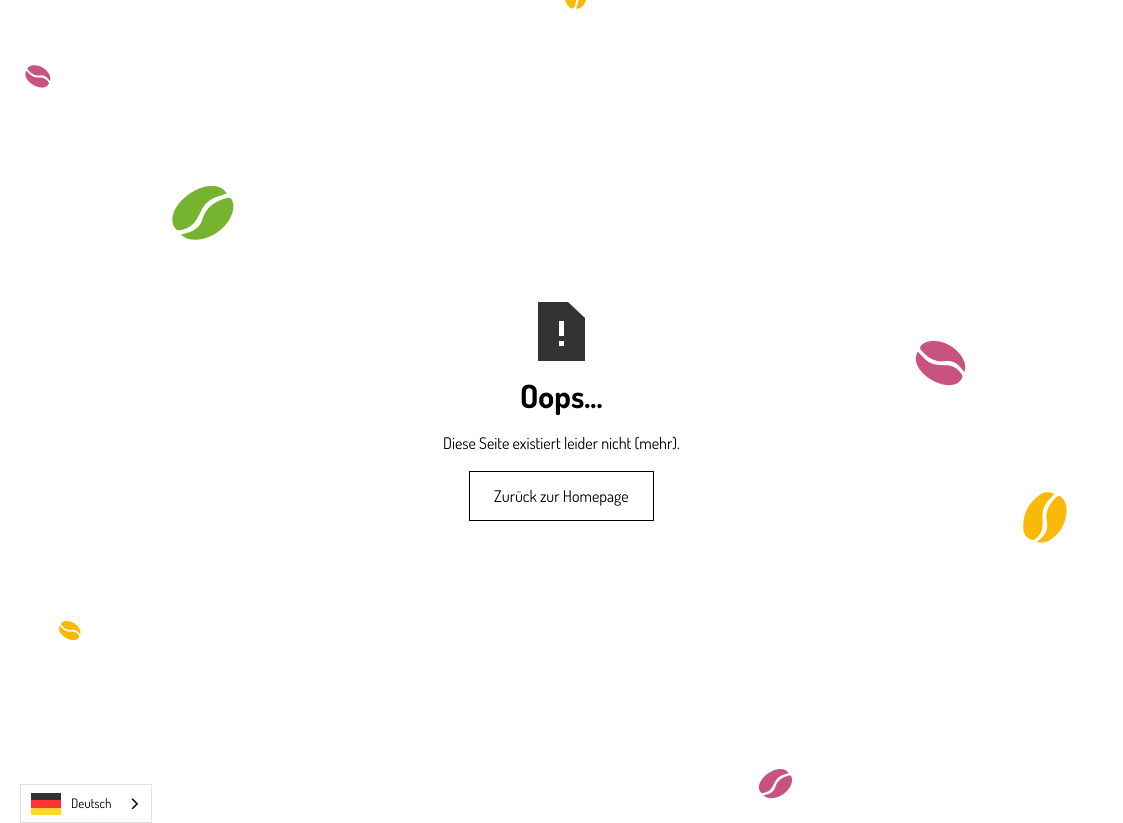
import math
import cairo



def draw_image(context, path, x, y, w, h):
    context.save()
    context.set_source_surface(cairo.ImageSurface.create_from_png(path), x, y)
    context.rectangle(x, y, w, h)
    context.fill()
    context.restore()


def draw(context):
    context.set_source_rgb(1, 1, 1)
    context.paint()
    draw_image(context, "images/1.png", 25, 0, 1042, 799)
    context.set_source_rgb(51 / 255, 51 / 255, 51 / 255)
    context.set_fill_rule(cairo.FillRule.EVEN_ODD)
    context.new_path()
    context.move_to(538, 302)
    context.line_to(568, 302)
    context.line_to(585, 318)
    context.line_to(585, 361)
    context.line_to(538, 361)
    context.close_path()
    context.move_to(559, 321)
    context.line_to(564, 321)
    context.line_to(564, 336)
    context.line_to(559, 336)
    context.close_path()
    context.move_to(559, 341)
    context.line_to(564, 341)
    context.line_to(564, 346)
    context.line_to(559, 346)
    context.close_path()
    context.fill()
    context.rectangle(469.5, 471.5, 184, 49)
    context.set_source_rgb(0, 0, 0)
    context.set_line_width(1)
    context.stroke()
    context.rectangle(20.5, 784.5, 131, 38)
    context.set_source_rgb(224 / 255, 224 / 255, 224 / 255)
    context.stroke()
    context.set_source_rgb(1, 214 / 255, 51 / 255)
    context.rectangle(31, 808, 30, 7)
    context.fill()
    context.set_source_rgb(51 / 255, 51 / 255, 52 / 255)
    context.rectangle(31, 793, 30, 7)
    context.fill()
    context.set_source_rgb(1, 51 / 255, 51 / 255)
    context.rectangle(31, 800, 30, 8)
    context.fill()
    draw_image(context, "images/2.png", 131, 798, 7, 11)
    context.select_font_face("Dosis", cairo.FontSlant.NORMAL, cairo.FontWeight.BOLD)
    context.set_font_size(32)
    context.set_source_rgb(0, 0, 0)
    context.move_to(520, 408)
    context.show_text("Oops...")
    context.select_font_face("Dosis")
    context.set_font_size(16)
    context.move_to(443, 449)
    context.show_text("Diese Seite existiert leider nicht (mehr).")
    context.move_to(494, 502)
    context.show_text("Zurück zur Homepage")
    context.set_font_size(13)
    context.move_to(71, 808)
    context.show_text("Deutsch")


surface = cairo.ImageSurface(cairo.Format.RGB24, 1123, 823)
context = cairo.Context(surface)
options = cairo.FontOptions()
options.set_hint_metrics(cairo.HintMetrics.OFF)
options.set_hint_style(cairo.HintStyle.NONE)
context.set_font_options(options)
context.set_miter_limit(4)
draw(context)
surface.write_to_png("out.png")
